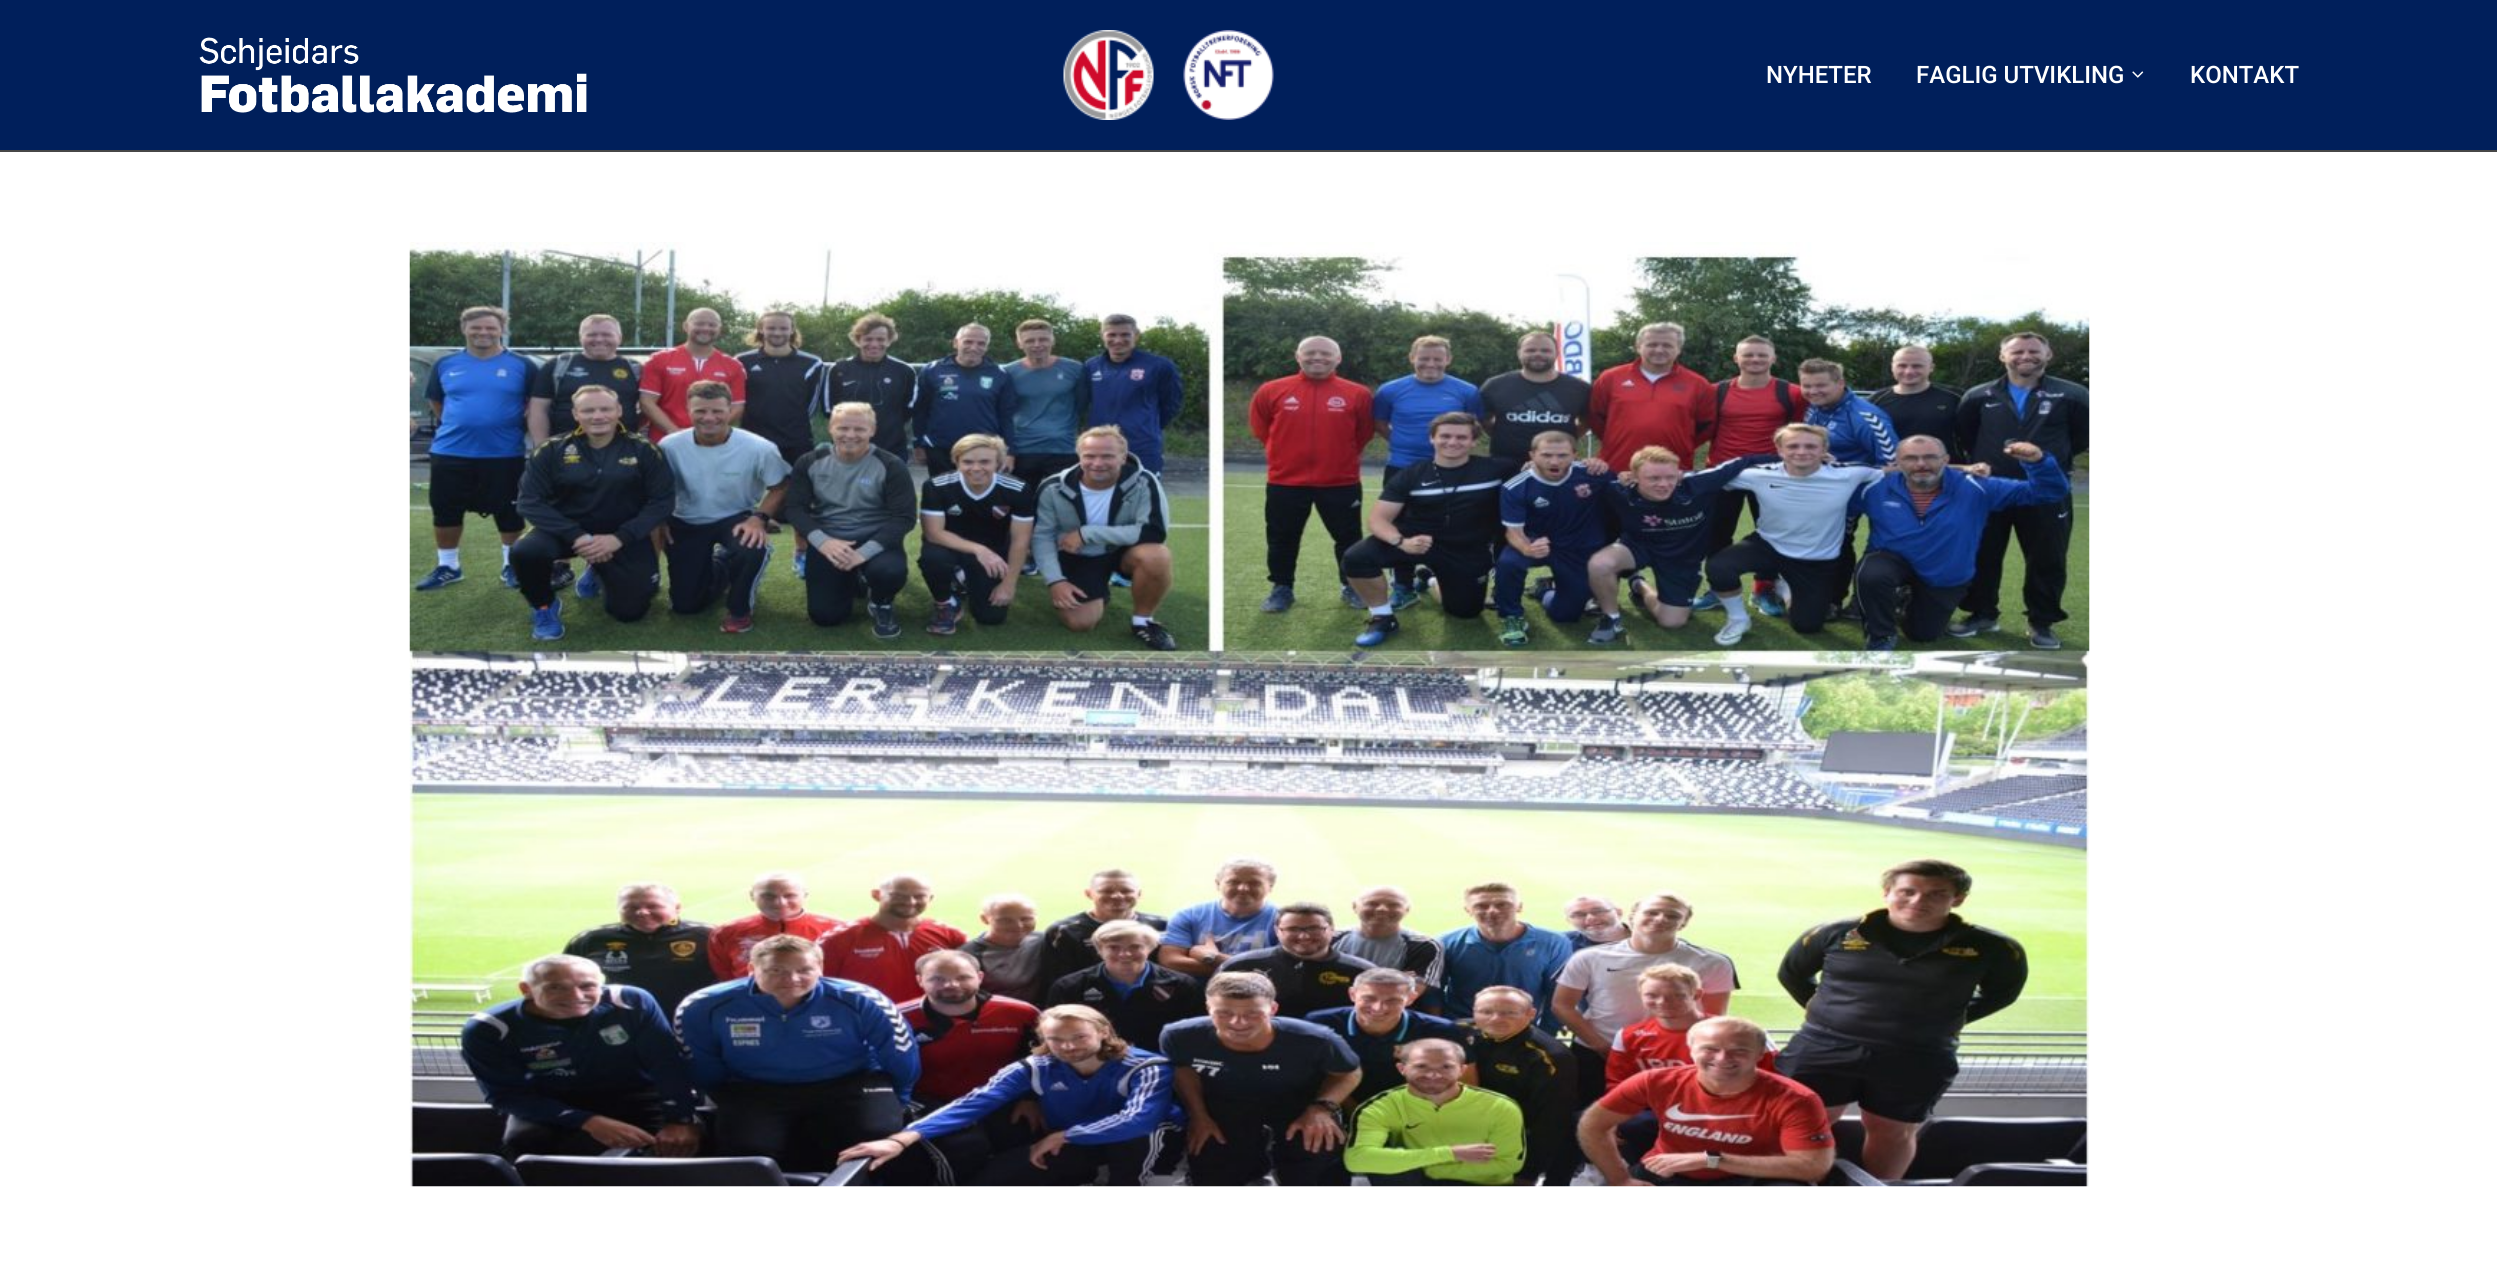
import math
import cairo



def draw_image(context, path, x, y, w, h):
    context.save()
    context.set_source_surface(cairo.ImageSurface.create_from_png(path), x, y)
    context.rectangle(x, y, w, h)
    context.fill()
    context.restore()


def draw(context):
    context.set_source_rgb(1, 1, 1)
    context.paint()
    context.set_source_rgb(71 / 255, 71 / 255, 71 / 255)
    context.rectangle(0, 150, 2497, 2)
    context.fill()
    context.set_source_rgb(0, 31 / 255, 91 / 255)
    context.rectangle(0, 0, 2497, 150)
    context.fill()
    draw_image(context, "images/1.png", 199, 37, 388, 76)
    draw_image(context, "images/2.png", 1063, 30, 91, 90)
    draw_image(context, "images/3.png", 1183, 30, 91, 90)
    draw_image(context, "images/4.png", 2132, 71, 12, 7)
    draw_image(context, "images/5.png", 409, 242, 1681, 945)
    context.select_font_face("Roboto Medium")
    context.set_font_size(24)
    context.set_source_rgb(1, 1, 1)
    context.move_to(1766, 83)
    context.show_text("NYHETER")
    context.move_to(1916, 83)
    context.show_text("FAGLIG UTVIKLING")
    context.move_to(2190, 83)
    context.show_text("KONTAKT")


surface = cairo.ImageSurface(cairo.Format.RGB24, 2497, 1288)
context = cairo.Context(surface)
options = cairo.FontOptions()
options.set_hint_metrics(cairo.HintMetrics.OFF)
options.set_hint_style(cairo.HintStyle.NONE)
context.set_font_options(options)
context.set_miter_limit(4)
draw(context)
surface.write_to_png("out.png")
